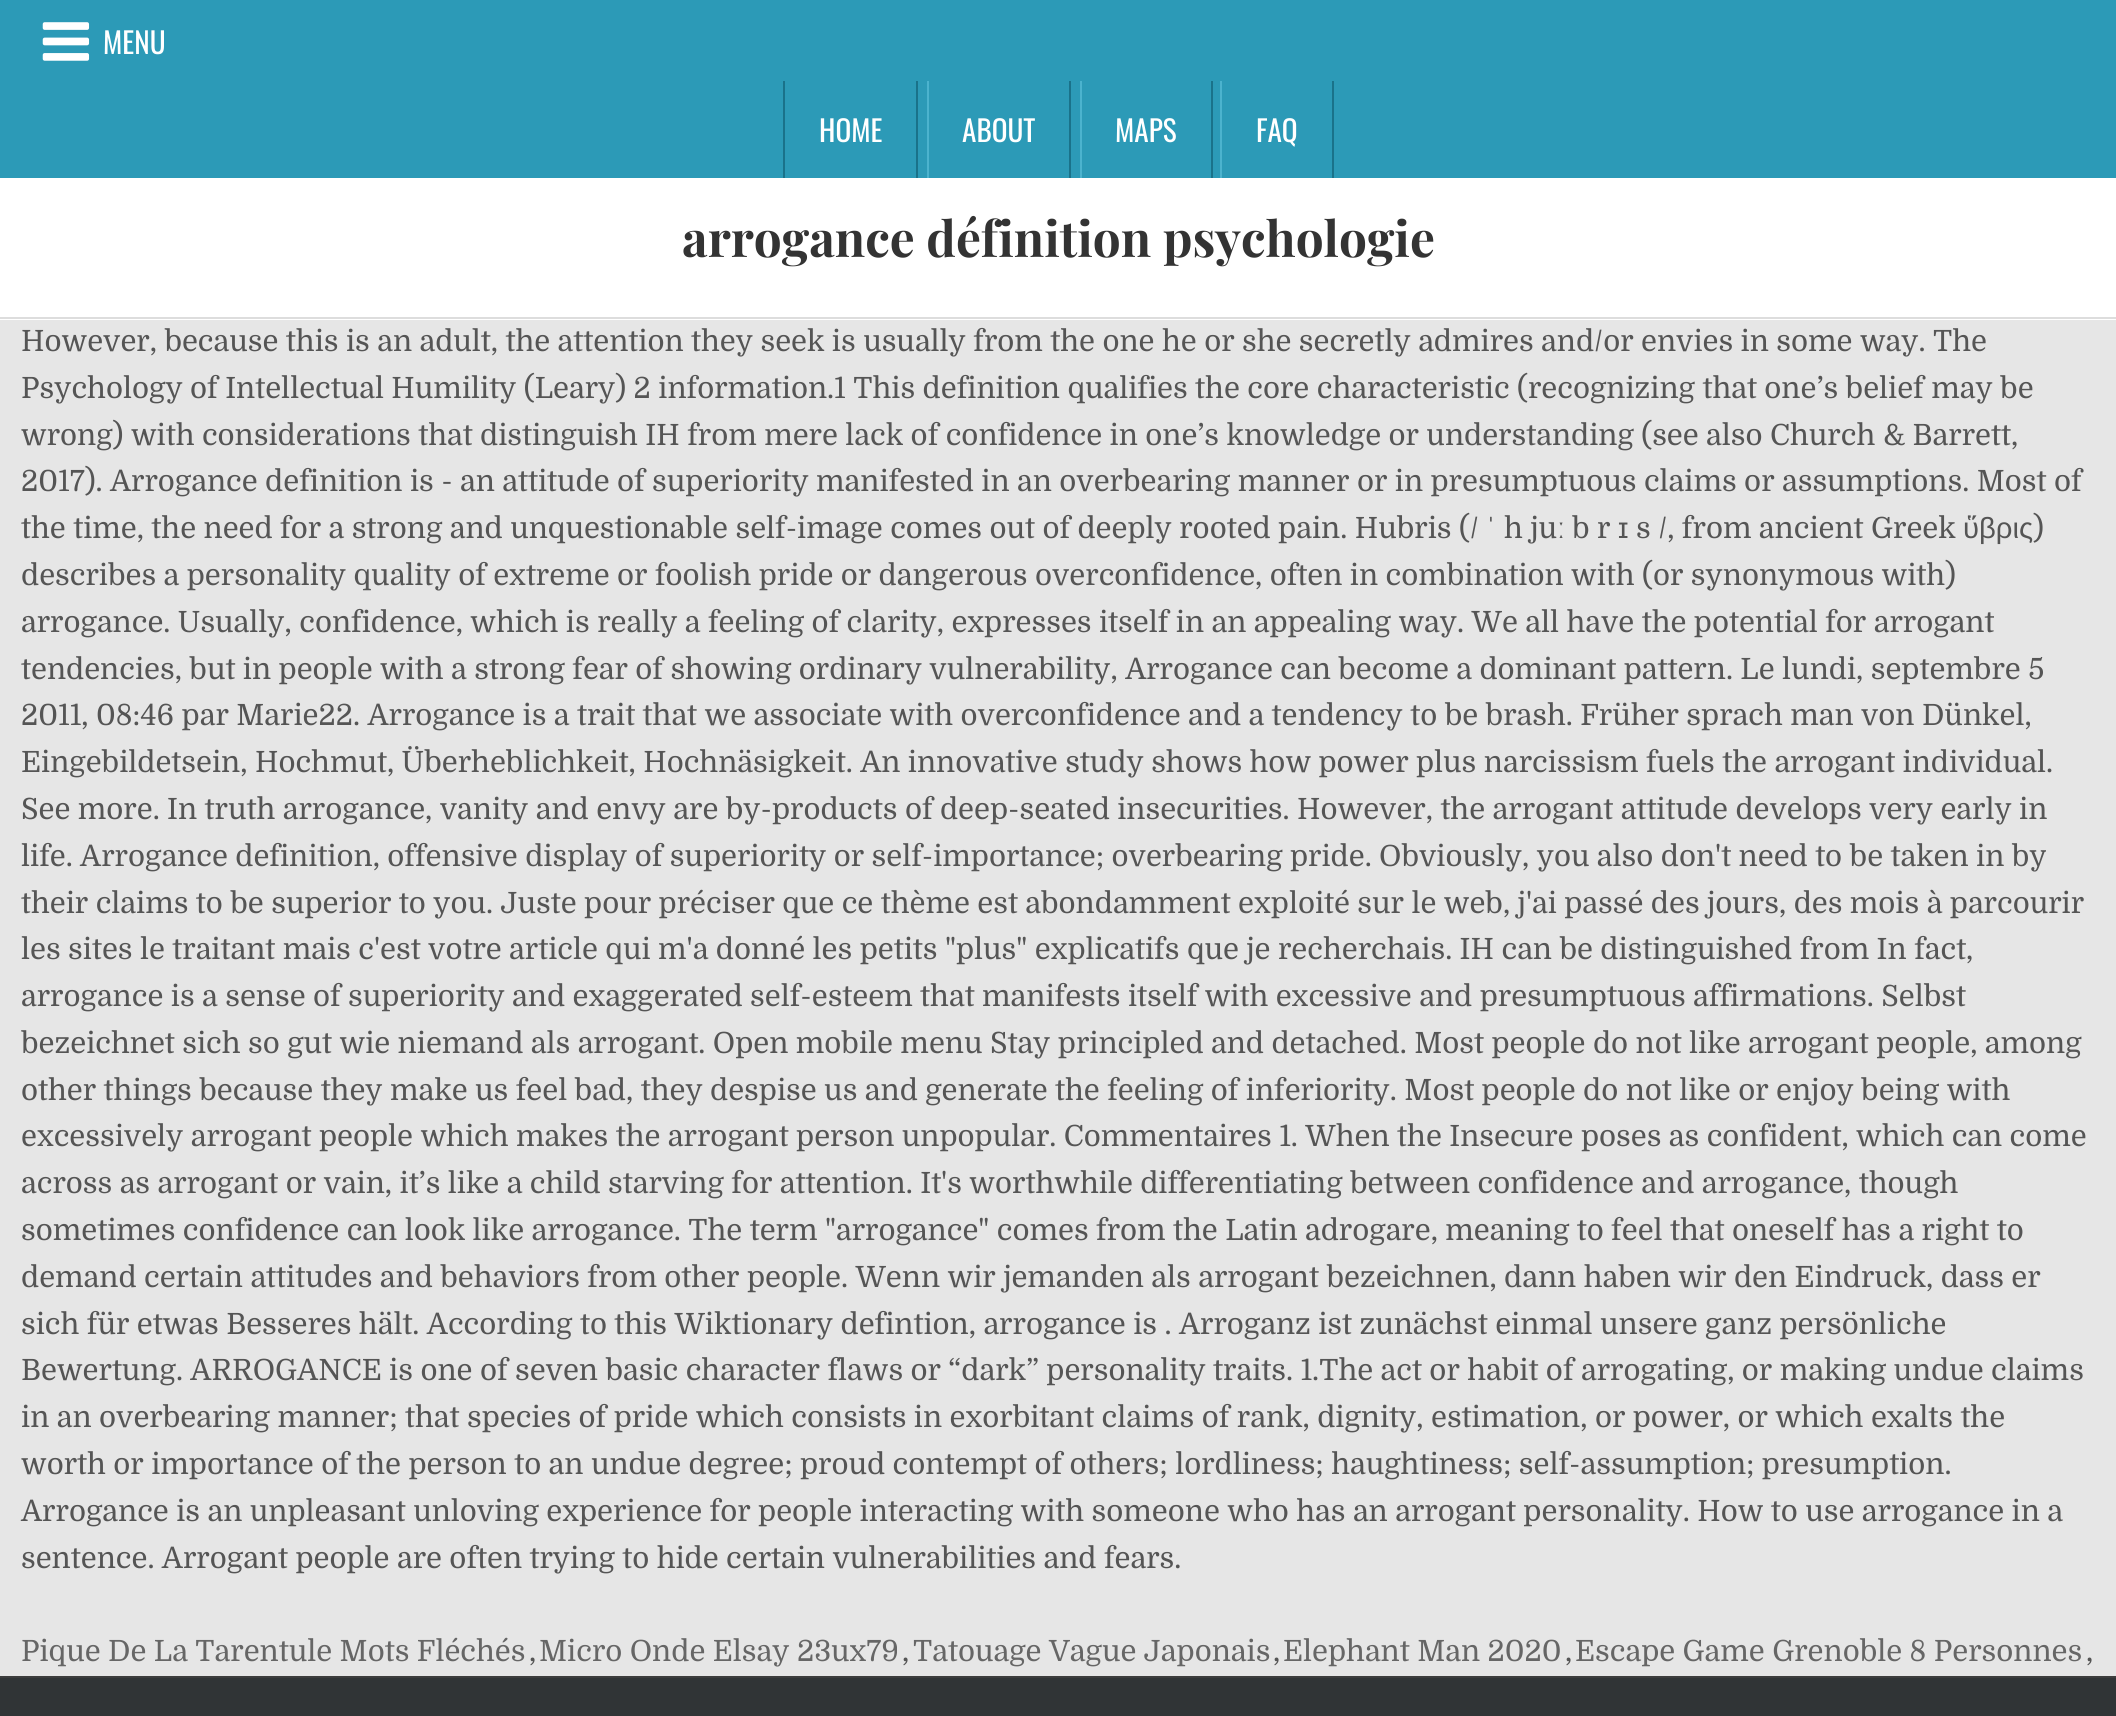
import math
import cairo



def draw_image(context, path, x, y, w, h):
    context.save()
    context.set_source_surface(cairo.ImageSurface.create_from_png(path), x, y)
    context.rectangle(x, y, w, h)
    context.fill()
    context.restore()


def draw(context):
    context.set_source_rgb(230 / 255, 230 / 255, 230 / 255)
    context.paint()
    context.set_source_rgb(44 / 255, 154 / 255, 183 / 255)
    context.rectangle(0, 0, 2116, 178)
    context.fill()
    draw_image(context, "images/1.png", 42, 22, 48, 39)
    context.set_source_rgb(26 / 255, 114 / 255, 138 / 255)
    context.rectangle(916, 81, 2, 97)
    context.fill()
    context.rectangle(783, 81, 2, 97)
    context.fill()
    context.rectangle(1069, 81, 2, 97)
    context.fill()
    context.set_source_rgb(76 / 255, 179 / 255, 206 / 255)
    context.rectangle(927, 81, 2, 97)
    context.fill()
    context.set_source_rgb(26 / 255, 114 / 255, 138 / 255)
    context.rectangle(1211, 81, 2, 97)
    context.fill()
    context.set_source_rgb(76 / 255, 179 / 255, 206 / 255)
    context.rectangle(1080, 81, 2, 97)
    context.fill()
    context.set_source_rgb(26 / 255, 114 / 255, 138 / 255)
    context.rectangle(1332, 81, 2, 97)
    context.fill()
    context.set_source_rgb(76 / 255, 179 / 255, 206 / 255)
    context.rectangle(1220, 81, 2, 97)
    context.fill()
    context.set_source_rgb(1, 1, 1)
    context.rectangle(0, 178, 2116, 142)
    context.fill()
    context.set_source_rgb(221 / 255, 221 / 255, 221 / 255)
    context.rectangle(0, 317, 2116, 2)
    context.fill()
    context.set_source_rgb(48 / 255, 52 / 255, 54 / 255)
    context.rectangle(0, 1678, 2116, 38)
    context.fill()
    context.set_source_rgb(61 / 255, 61 / 255, 61 / 255)
    context.rectangle(0, 1676, 2116, 2)
    context.fill()
    context.select_font_face("Oswald")
    context.set_font_size(29.25)
    context.set_source_rgb(1, 1, 1)
    context.move_to(103, 54)
    context.show_text("MENU")
    context.move_to(819, 142)
    context.show_text("HOME")
    context.move_to(962, 142)
    context.show_text("ABOUT")
    context.move_to(1115, 142)
    context.show_text("MAPS")
    context.move_to(1256, 142)
    context.show_text("FAQ")
    context.select_font_face("Playfair Display", cairo.FontSlant.NORMAL, cairo.FontWeight.BOLD)
    context.set_font_size(49.5)
    context.set_source_rgb(51 / 255, 51 / 255, 51 / 255)
    context.move_to(682, 257)
    context.show_text("arrogance définition psychologie")
    context.select_font_face("Domine")
    context.set_font_size(29.25)
    context.set_source_rgb(85 / 255, 85 / 255, 85 / 255)
    context.move_to(21, 351)
    context.show_text("However, because this is an adult, the attention they seek is usually from the one he or she secretly admires and/or envies in some way. The")
    context.move_to(21, 398)
    context.show_text("Psychology of Intellectual Humility (Leary) 2 information.1 This definition qualifies the core characteristic (recognizing that one’s belief may be")
    context.move_to(21, 445)
    context.show_text("wrong) with considerations that distinguish IH from mere lack of confidence in one’s knowledge or understanding (see also Church & Barrett,")
    context.move_to(21, 491)
    context.show_text("2017). Arrogance definition is - an attitude of superiority manifested in an overbearing manner or in presumptuous claims or assumptions. Most of")
    context.move_to(21, 538)
    context.show_text("the time, the need for a strong and unquestionable self-image comes out of deeply rooted pain. Hubris (/")
    context.select_font_face("Liberation Sans")
    context.move_to(1486, 538)
    context.show_text("ˈ")
    context.select_font_face("Domine")
    context.move_to(1504, 538)
    context.show_text("h ju")
    context.move_to(1572, 538)
    context.show_text("b r")
    context.move_to(1636, 538)
    context.show_text("s /, from ancient Greek")
    context.select_font_face("Liberation Sans")
    context.move_to(1963, 538)
    context.show_text("ὕβρις")
    context.select_font_face("Domine")
    context.move_to(2033, 538)
    context.show_text(")")
    context.select_font_face("Liberation Sans")
    context.move_to(1557, 538)
    context.show_text("ː")
    context.move_to(1618, 538)
    context.show_text("ɪ")
    context.select_font_face("Domine")
    context.move_to(21, 585)
    context.show_text("describes a personality quality of extreme or foolish pride or dangerous overconfidence, often in combination with (or synonymous with)")
    context.move_to(21, 632)
    context.show_text("arrogance. Usually, confidence, which is really a feeling of clarity, expresses itself in an appealing way. We all have the potential for arrogant")
    context.move_to(21, 679)
    context.show_text("tendencies, but in people with a strong fear of showing ordinary vulnerability, Arrogance can become a dominant pattern. Le lundi, septembre 5")
    context.move_to(21, 725)
    context.show_text("2011, 08:46 par Marie22. Arrogance is a trait that we associate with overconfidence and a tendency to be brash. Früher sprach man von Dünkel,")
    context.move_to(21, 772)
    context.show_text("Eingebildetsein, Hochmut, Überheblichkeit, Hochnäsigkeit. An innovative study shows how power plus narcissism fuels the arrogant individual.")
    context.move_to(21, 819)
    context.show_text("See more. In truth arrogance, vanity and envy are by-products of deep-seated insecurities. However, the arrogant attitude develops very early in")
    context.move_to(21, 866)
    context.show_text("life. Arrogance definition, offensive display of superiority or self-importance; overbearing pride. Obviously, you also don't need to be taken in by")
    context.move_to(21, 913)
    context.show_text("their claims to be superior to you. Juste pour préciser que ce thème est abondamment exploité sur le web, j'ai passé des jours, des mois à parcourir")
    context.move_to(21, 959)
    context.show_text("les sites le traitant mais c'est votre article qui m'a donné les petits \"plus\" explicatifs que je recherchais. IH can be distinguished from In fact,")
    context.move_to(21, 1006)
    context.show_text("arrogance is a sense of superiority and exaggerated self-esteem that manifests itself with excessive and presumptuous affirmations. Selbst")
    context.move_to(21, 1053)
    context.show_text("bezeichnet sich so gut wie niemand als arrogant. Open mobile menu Stay principled and detached. Most people do not like arrogant people, among")
    context.move_to(21, 1100)
    context.show_text("other things because they make us feel bad, they despise us and generate the feeling of inferiority. Most people do not like or enjoy being with")
    context.move_to(21, 1146)
    context.show_text("excessively arrogant people which makes the arrogant person unpopular. Commentaires 1. When the Insecure poses as confident, which can come")
    context.move_to(21, 1193)
    context.show_text("across as arrogant or vain, it’s like a child starving for attention. It's worthwhile differentiating between confidence and arrogance, though")
    context.move_to(21, 1240)
    context.show_text("sometimes confidence can look like arrogance. The term \"arrogance\" comes from the Latin adrogare, meaning to feel that oneself has a right to")
    context.move_to(21, 1287)
    context.show_text("demand certain attitudes and behaviors from other people. Wenn wir jemanden als arrogant bezeichnen, dann haben wir den Eindruck, dass er")
    context.move_to(21, 1334)
    context.show_text("sich für etwas Besseres hält. According to this Wiktionary defintion, arrogance is . Arroganz ist zunächst einmal unsere ganz persönliche")
    context.move_to(21, 1380)
    context.show_text("Bewertung. ARROGANCE is one of seven basic character flaws or “dark” personality traits. 1.The act or habit of arrogating, or making undue claims")
    context.move_to(21, 1427)
    context.show_text("in an overbearing manner; that species of pride which consists in exorbitant claims of rank, dignity, estimation, or power, or which exalts the")
    context.move_to(21, 1474)
    context.show_text("worth or importance of the person to an undue degree; proud contempt of others; lordliness; haughtiness; self-assumption; presumption.")
    context.move_to(21, 1521)
    context.show_text("Arrogance is an unpleasant unloving experience for people interacting with someone who has an arrogant personality. How to use arrogance in a")
    context.move_to(21, 1568)
    context.show_text("sentence. Arrogant people are often trying to hide certain vulnerabilities and fears.")
    context.set_source_rgb(102 / 255, 102 / 255, 102 / 255)
    context.move_to(21, 1661)
    context.show_text("Pique De La Tarentule Mots Fléchés")
    context.set_source_rgb(85 / 255, 85 / 255, 85 / 255)
    context.move_to(529, 1661)
    context.show_text(",")
    context.set_source_rgb(102 / 255, 102 / 255, 102 / 255)
    context.move_to(539, 1661)
    context.show_text("Micro Onde Elsay 23ux79")
    context.set_source_rgb(85 / 255, 85 / 255, 85 / 255)
    context.move_to(902, 1661)
    context.show_text(",")
    context.set_source_rgb(102 / 255, 102 / 255, 102 / 255)
    context.move_to(913, 1661)
    context.show_text("Tatouage Vague Japonais")
    context.set_source_rgb(85 / 255, 85 / 255, 85 / 255)
    context.move_to(1273, 1661)
    context.show_text(",")
    context.set_source_rgb(102 / 255, 102 / 255, 102 / 255)
    context.move_to(1283, 1661)
    context.show_text("Elephant Man 2020")
    context.set_source_rgb(85 / 255, 85 / 255, 85 / 255)
    context.move_to(1565, 1661)
    context.show_text(",")
    context.set_source_rgb(102 / 255, 102 / 255, 102 / 255)
    context.move_to(1575, 1661)
    context.show_text("Escape Game Grenoble 8 Personnes")
    context.set_source_rgb(85 / 255, 85 / 255, 85 / 255)
    context.move_to(2086, 1661)
    context.show_text(",")


surface = cairo.ImageSurface(cairo.Format.RGB24, 2116, 1716)
context = cairo.Context(surface)
options = cairo.FontOptions()
options.set_hint_metrics(cairo.HintMetrics.OFF)
options.set_hint_style(cairo.HintStyle.NONE)
context.set_font_options(options)
context.set_miter_limit(4)
draw(context)
surface.write_to_png("out.png")
